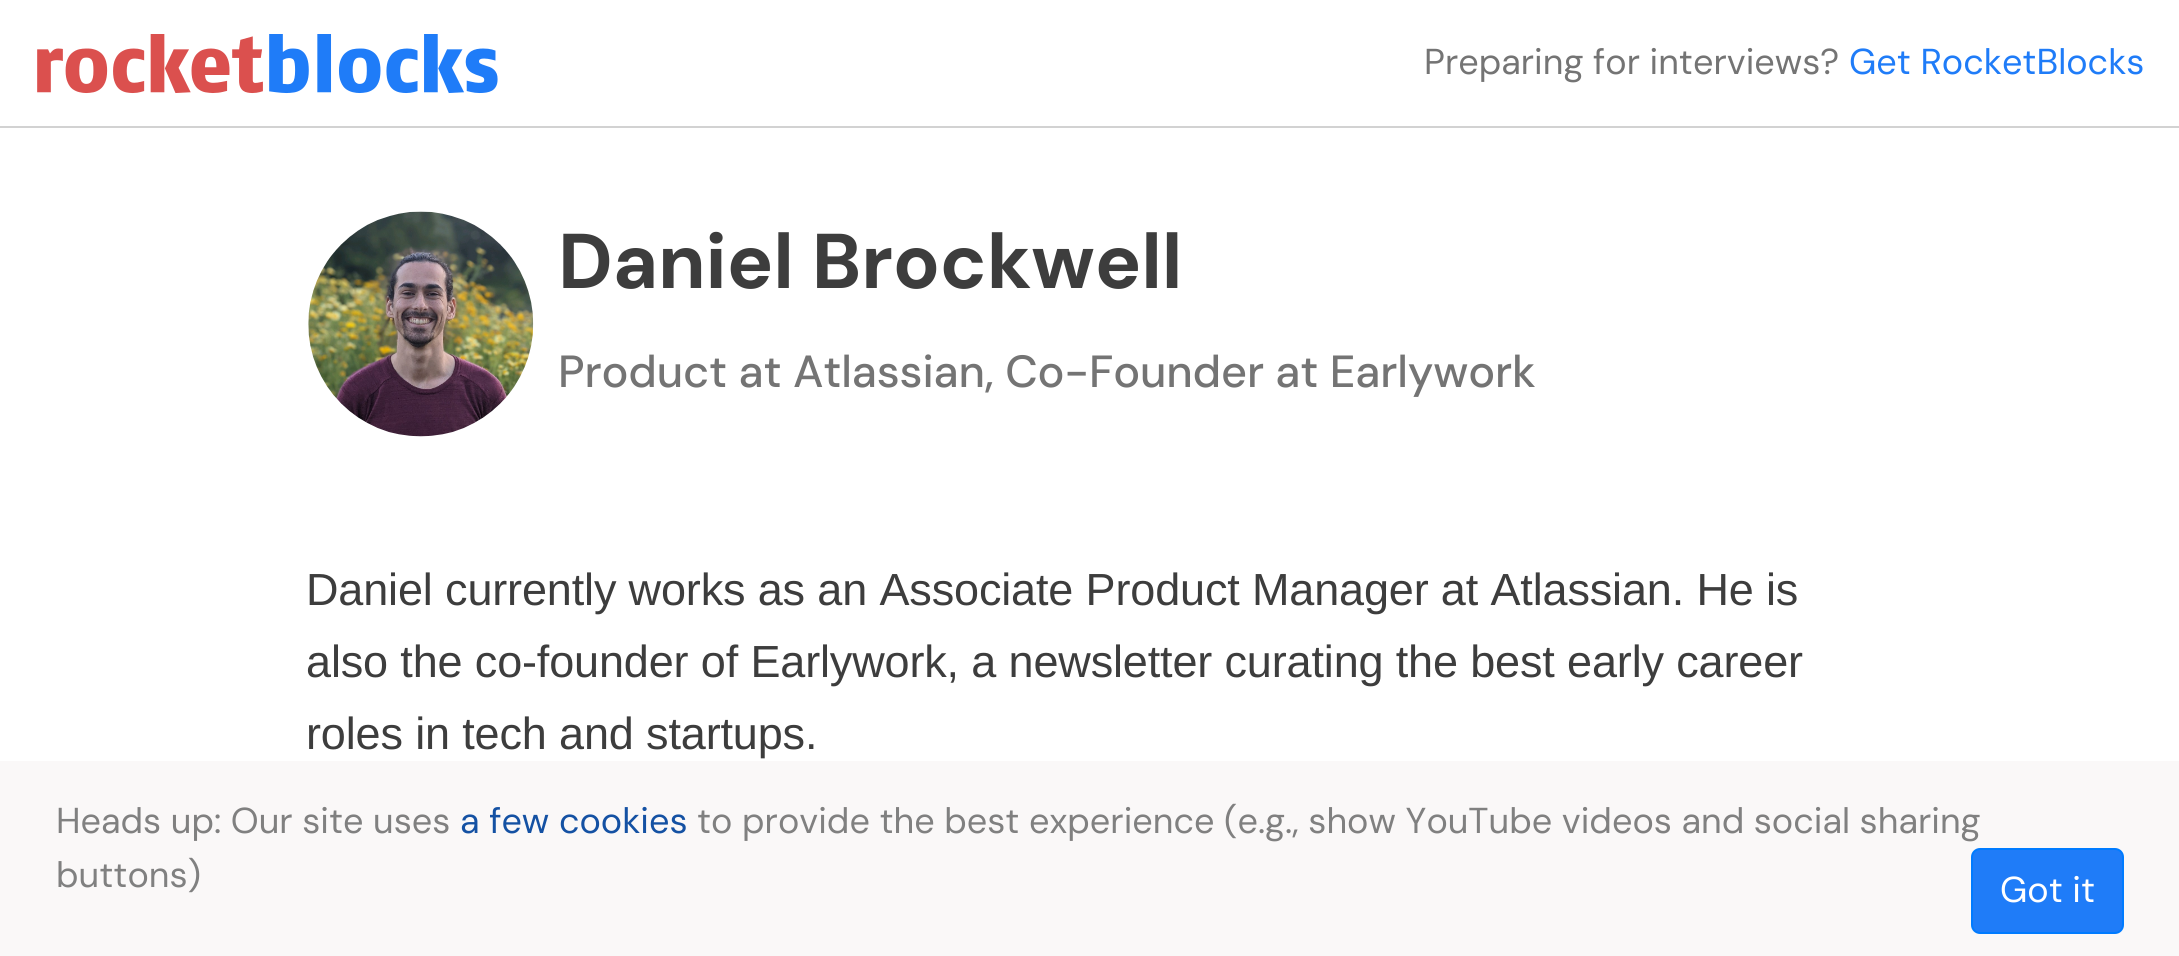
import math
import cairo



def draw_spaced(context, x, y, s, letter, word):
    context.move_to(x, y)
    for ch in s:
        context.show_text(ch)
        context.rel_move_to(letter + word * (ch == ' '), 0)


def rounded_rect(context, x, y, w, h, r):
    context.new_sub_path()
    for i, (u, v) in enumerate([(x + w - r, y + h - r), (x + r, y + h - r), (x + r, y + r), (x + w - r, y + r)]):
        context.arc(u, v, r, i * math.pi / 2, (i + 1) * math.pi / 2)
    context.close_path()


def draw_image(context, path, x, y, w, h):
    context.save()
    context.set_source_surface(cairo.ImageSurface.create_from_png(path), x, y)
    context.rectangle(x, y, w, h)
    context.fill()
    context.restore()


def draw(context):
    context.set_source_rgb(1, 1, 1)
    context.paint()
    context.set_source_rgb(210 / 255, 210 / 255, 210 / 255)
    context.rectangle(0, 126, 2179, 2)
    context.fill()
    draw_image(context, "images/1.png", 37, 34, 461, 60)
    draw_image(context, "images/2.png", 308, 211, 226, 226)
    context.set_source_rgb(250 / 255, 248 / 255, 248 / 255)
    context.rectangle(0, 761, 2179, 195)
    context.fill()
    context.set_source_rgb(31 / 255, 124 / 255, 248 / 255)
    rounded_rect(context, 1972, 849, 151, 84, 8)
    context.fill_preserve()
    context.set_source_rgb(0, 123 / 255, 1)
    context.stroke()
    context.select_font_face("DM Sans")
    context.set_font_size(36)
    context.set_source_rgb(116 / 255, 116 / 255, 116 / 255)
    context.move_to(1424, 74)
    context.show_text("Preparing for interviews?")
    context.set_source_rgb(31 / 255, 124 / 255, 248 / 255)
    context.move_to(1849, 74)
    context.show_text("Get RocketBlocks")
    context.select_font_face("DM Sans", cairo.FontSlant.NORMAL, cairo.FontWeight.BOLD)
    context.set_font_size(77.5)
    context.set_source_rgb(61 / 255, 61 / 255, 61 / 255)
    draw_spaced(context, 558, 288, "Daniel Brockwell", -0.15, 0)
    context.select_font_face("DM Sans Medium")
    context.set_font_size(45)
    context.set_source_rgb(116 / 255, 116 / 255, 116 / 255)
    draw_spaced(context, 558, 387, "Product at Atlassian, Co-Founder at Earlywork", -0.15, 0)
    context.select_font_face("Liberation Sans")
    context.set_source_rgb(61 / 255, 61 / 255, 61 / 255)
    draw_spaced(context, 306, 605, "Daniel currently works as an Associate Product Manager at Atlassian. He is", -0.15, 0)
    draw_spaced(context, 306, 677, "also the co-founder of Earlywork, a newsletter curating the best early career", -0.15, 0)
    draw_spaced(context, 306, 749, "roles in tech and startups.", -0.15, 0)
    context.select_font_face("DM Sans")
    context.set_font_size(36)
    context.set_source_rgb(128 / 255, 128 / 255, 128 / 255)
    context.move_to(56, 833)
    context.show_text("Heads up: Our site uses")
    context.set_source_rgb(20 / 255, 81 / 255, 163 / 255)
    context.move_to(460, 833)
    context.show_text("a few cookies")
    context.set_source_rgb(128 / 255, 128 / 255, 128 / 255)
    context.move_to(697, 833)
    context.show_text("to provide the best experience (e.g., show YouTube videos and social sharing")
    context.move_to(56, 887)
    context.show_text("buttons)")
    context.set_source_rgb(1, 1, 1)
    context.move_to(2000, 902)
    context.show_text("Got it")


surface = cairo.ImageSurface(cairo.Format.RGB24, 2179, 956)
context = cairo.Context(surface)
options = cairo.FontOptions()
options.set_hint_metrics(cairo.HintMetrics.OFF)
options.set_hint_style(cairo.HintStyle.NONE)
context.set_font_options(options)
context.set_miter_limit(4)
draw(context)
surface.write_to_png("out.png")
